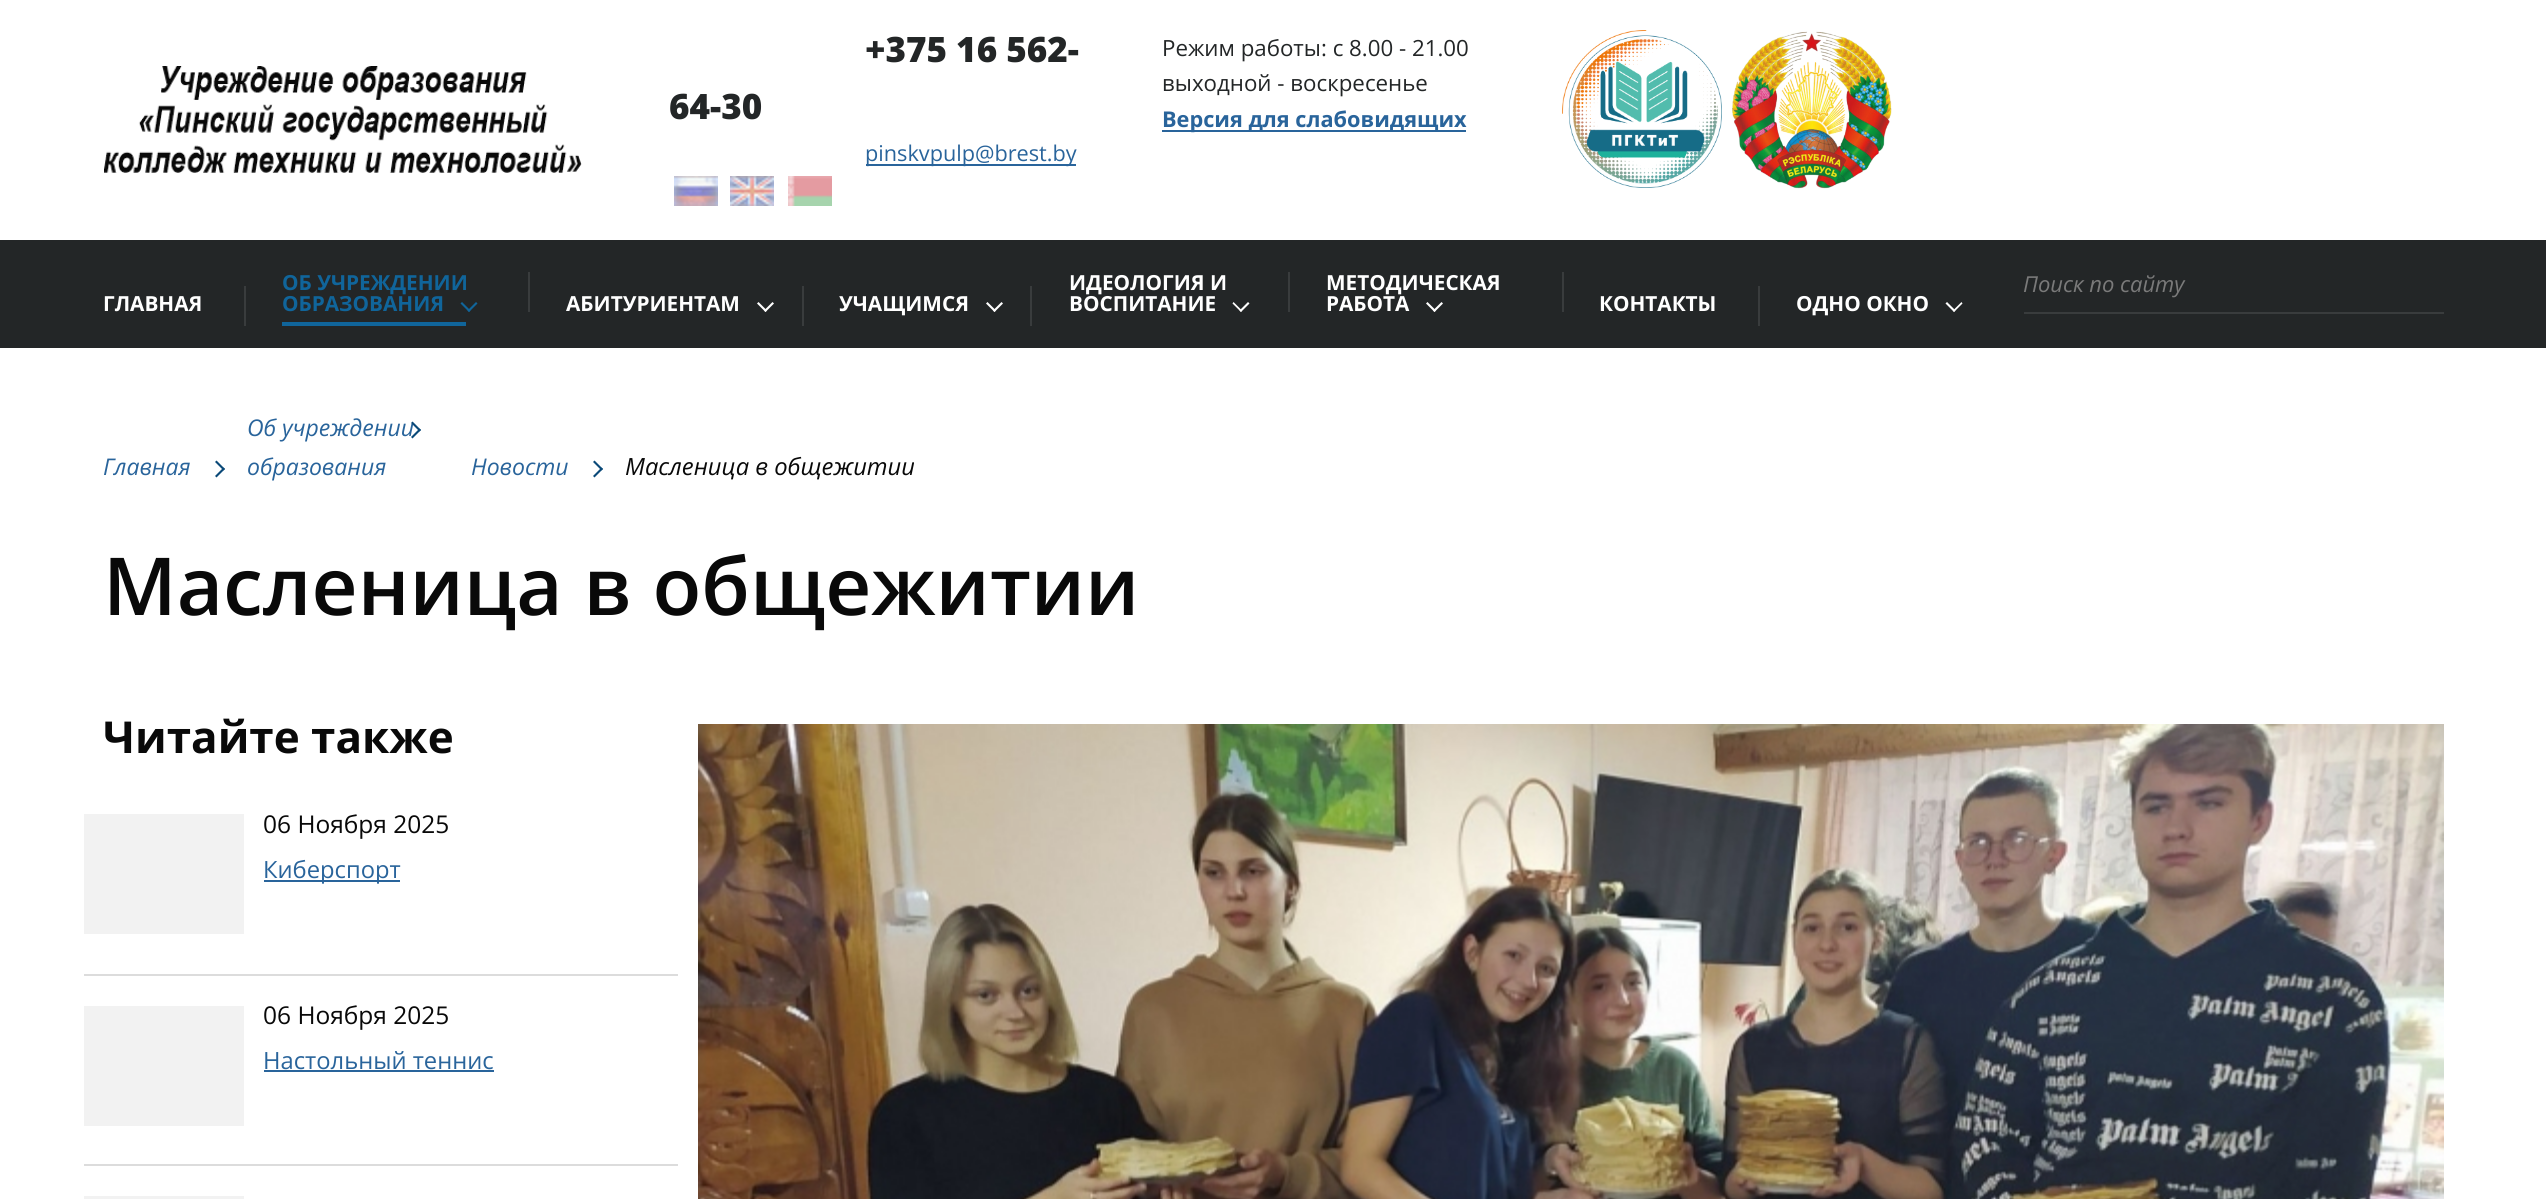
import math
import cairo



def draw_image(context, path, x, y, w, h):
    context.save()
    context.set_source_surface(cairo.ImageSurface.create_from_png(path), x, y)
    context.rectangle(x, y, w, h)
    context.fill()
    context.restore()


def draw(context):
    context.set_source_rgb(1, 1, 1)
    context.paint()
    draw_image(context, "images/1.png", 104, 66, 478, 107)
    context.set_source_rgb(41 / 255, 100 / 255, 155 / 255)
    context.rectangle(866, 164, 210, 2)
    context.fill()
    draw_image(context, "images/2.png", 674, 176, 44, 30)
    draw_image(context, "images/3.png", 730, 176, 44, 30)
    draw_image(context, "images/4.png", 788, 176, 44, 30)
    context.rectangle(1162, 130, 304, 2)
    context.fill()
    draw_image(context, "images/5.png", 1562, 30, 160, 158)
    draw_image(context, "images/6.png", 1732, 31, 160, 158)
    context.set_source_rgb(35 / 255, 38 / 255, 39 / 255)
    context.rectangle(0, 240, 2546, 108)
    context.fill()
    context.set_source_rgb(57 / 255, 60 / 255, 61 / 255)
    context.rectangle(244, 286, 2, 40)
    context.fill()
    context.set_source_rgb(16 / 255, 101 / 255, 155 / 255)
    context.rectangle(282, 322, 184, 4)
    context.fill()
    context.new_path()
    context.move_to(476, 302)
    context.line_to(477.5, 303.5)
    context.line_to(469, 312)
    context.line_to(467.5, 310.5)
    context.close_path()
    context.fill()
    context.new_path()
    context.move_to(462, 302)
    context.line_to(470.5, 310.5)
    context.line_to(469, 312)
    context.line_to(460.5, 303.5)
    context.close_path()
    context.fill()
    context.set_source_rgb(57 / 255, 60 / 255, 61 / 255)
    context.rectangle(528, 272, 2, 40)
    context.fill()
    context.set_source_rgb(1, 1, 1)
    context.new_path()
    context.move_to(772.5, 302)
    context.line_to(774, 303.5)
    context.line_to(765.5, 312)
    context.line_to(764, 310.5)
    context.close_path()
    context.fill()
    context.new_path()
    context.move_to(758.5, 302)
    context.line_to(767, 310.5)
    context.line_to(765.5, 312)
    context.line_to(757, 303.5)
    context.close_path()
    context.fill()
    context.set_source_rgb(57 / 255, 60 / 255, 61 / 255)
    context.rectangle(802, 286, 2, 40)
    context.fill()
    context.set_source_rgb(1, 1, 1)
    context.new_path()
    context.move_to(1001.5, 302)
    context.line_to(1003, 303.5)
    context.line_to(994.5, 312)
    context.line_to(993, 310.5)
    context.close_path()
    context.fill()
    context.new_path()
    context.move_to(987.5, 302)
    context.line_to(996, 310.5)
    context.line_to(994.5, 312)
    context.line_to(986, 303.5)
    context.close_path()
    context.fill()
    context.set_source_rgb(57 / 255, 60 / 255, 61 / 255)
    context.rectangle(1030, 286, 2, 40)
    context.fill()
    context.set_source_rgb(1, 1, 1)
    context.new_path()
    context.move_to(1248, 302)
    context.line_to(1249.5, 303.5)
    context.line_to(1241, 312)
    context.line_to(1239.5, 310.5)
    context.close_path()
    context.fill()
    context.new_path()
    context.move_to(1233.5, 302)
    context.line_to(1242, 310.5)
    context.line_to(1241, 312)
    context.line_to(1232.5, 303.5)
    context.close_path()
    context.fill()
    context.set_source_rgb(57 / 255, 60 / 255, 61 / 255)
    context.rectangle(1288, 272, 2, 40)
    context.fill()
    context.set_source_rgb(1, 1, 1)
    context.new_path()
    context.move_to(1441.5, 302)
    context.line_to(1443, 303.5)
    context.line_to(1434.5, 312)
    context.line_to(1433, 310.5)
    context.close_path()
    context.fill()
    context.new_path()
    context.move_to(1427.5, 302)
    context.line_to(1436, 310.5)
    context.line_to(1434.5, 312)
    context.line_to(1426, 303.5)
    context.close_path()
    context.fill()
    context.set_source_rgb(57 / 255, 60 / 255, 61 / 255)
    context.rectangle(1562, 272, 2, 40)
    context.fill()
    context.rectangle(1758, 286, 2, 40)
    context.fill()
    context.set_source_rgb(1, 1, 1)
    context.new_path()
    context.move_to(1961.5, 302)
    context.line_to(1962.5, 303.5)
    context.line_to(1954, 312)
    context.line_to(1953, 310.5)
    context.close_path()
    context.fill()
    context.new_path()
    context.move_to(1947, 302)
    context.line_to(1955.5, 310.5)
    context.line_to(1954, 312)
    context.line_to(1945.5, 303.5)
    context.close_path()
    context.fill()
    context.set_source_rgb(57 / 255, 60 / 255, 61 / 255)
    context.rectangle(2024, 312, 420, 2)
    context.fill()
    context.set_source_rgb(10 / 255, 73 / 255, 120 / 255)
    context.new_path()
    context.move_to(216.5, 460.5)
    context.line_to(225, 469)
    context.line_to(223.5, 470.5)
    context.line_to(215, 462)
    context.close_path()
    context.fill()
    context.new_path()
    context.move_to(223.5, 467.5)
    context.line_to(225, 469)
    context.line_to(216.5, 477.5)
    context.line_to(215, 476)
    context.close_path()
    context.fill()
    context.new_path()
    context.move_to(594.5, 460.5)
    context.line_to(603, 469)
    context.line_to(601.5, 470.5)
    context.line_to(593, 462)
    context.close_path()
    context.fill()
    context.new_path()
    context.move_to(601.5, 467.5)
    context.line_to(603, 469)
    context.line_to(594.5, 477.5)
    context.line_to(593, 476)
    context.close_path()
    context.fill()
    context.set_source_rgb(220 / 255, 220 / 255, 220 / 255)
    context.rectangle(84, 974, 594, 2)
    context.fill()
    context.set_source_rgb(242 / 255, 242 / 255, 242 / 255)
    context.rectangle(84, 814, 160, 120)
    context.fill()
    context.set_source_rgb(41 / 255, 100 / 255, 155 / 255)
    context.rectangle(264, 880, 136, 2)
    context.fill()
    context.set_source_rgb(220 / 255, 220 / 255, 220 / 255)
    context.rectangle(84, 1164, 594, 2)
    context.fill()
    context.set_source_rgb(242 / 255, 242 / 255, 242 / 255)
    context.rectangle(84, 1006, 160, 120)
    context.fill()
    context.set_source_rgb(41 / 255, 100 / 255, 155 / 255)
    context.rectangle(264, 1070, 230, 2)
    context.fill()
    context.set_source_rgb(242 / 255, 242 / 255, 242 / 255)
    context.rectangle(84, 1196, 160, 3)
    context.fill()
    draw_image(context, "images/7.png", 698, 724, 1746, 475)
    context.select_font_face("Open Sans ExtraBold")
    context.set_font_size(35)
    context.set_source_rgb(35 / 255, 38 / 255, 39 / 255)
    context.move_to(865, 62)
    context.show_text("+375 16 562-")
    context.move_to(669, 119)
    context.show_text("64-30")
    context.select_font_face("Open Sans")
    context.set_font_size(21.7)
    context.set_source_rgb(41 / 255, 100 / 255, 155 / 255)
    context.move_to(865, 161)
    context.show_text("pinskvpulp@brest.by")
    context.set_font_size(22.3)
    context.set_source_rgb(35 / 255, 38 / 255, 39 / 255)
    context.move_to(1162, 56)
    context.show_text("Режим работы: с 8.00 - 21.00")
    context.move_to(1162, 91)
    context.show_text("выходной - воскресенье")
    context.select_font_face("Open Sans", cairo.FontSlant.NORMAL, cairo.FontWeight.BOLD)
    context.set_font_size(21.7)
    context.set_source_rgb(41 / 255, 100 / 255, 155 / 255)
    context.move_to(1162, 127)
    context.show_text("Версия для слабовидящих")
    context.set_font_size(20.75)
    context.set_source_rgb(1, 1, 1)
    context.move_to(103, 311)
    context.show_text("ГЛАВНАЯ")
    context.set_source_rgb(16 / 255, 101 / 255, 155 / 255)
    context.move_to(282, 290)
    context.show_text("ОБ УЧРЕЖДЕНИИ")
    context.move_to(282, 311)
    context.show_text("ОБРАЗОВАНИЯ")
    context.set_source_rgb(1, 1, 1)
    context.move_to(566, 311)
    context.show_text("АБИТУРИЕНТАМ")
    context.move_to(839, 311)
    context.show_text("УЧАЩИМСЯ")
    context.move_to(1069, 290)
    context.show_text("ИДЕОЛОГИЯ И")
    context.move_to(1069, 311)
    context.show_text("ВОСПИТАНИЕ")
    context.move_to(1326, 290)
    context.show_text("МЕТОДИЧЕСКАЯ")
    context.move_to(1326, 311)
    context.show_text("РАБОТА")
    context.move_to(1599, 311)
    context.show_text("КОНТАКТЫ")
    context.move_to(1796, 311)
    context.show_text("ОДНО ОКНО")
    context.select_font_face("Open Sans", cairo.FontSlant.ITALIC)
    context.set_font_size(22)
    context.set_source_rgb(122 / 255, 122 / 255, 122 / 255)
    context.move_to(2023, 292)
    context.show_text("Поиск по сайту")
    context.set_font_size(23)
    context.set_source_rgb(41 / 255, 100 / 255, 155 / 255)
    context.move_to(103, 475)
    context.show_text("Главная")
    context.move_to(247, 436)
    context.show_text("Об учреждении")
    context.set_source_rgb(10 / 255, 73 / 255, 120 / 255)
    context.new_path()
    context.move_to(412.5, 421.5)
    context.line_to(421, 430)
    context.line_to(419.5, 431.5)
    context.line_to(411, 423)
    context.close_path()
    context.fill()
    context.new_path()
    context.move_to(419.5, 428.5)
    context.line_to(421, 430)
    context.line_to(412.5, 438.5)
    context.line_to(411, 437)
    context.close_path()
    context.fill()
    context.set_source_rgb(41 / 255, 100 / 255, 155 / 255)
    context.move_to(247, 475)
    context.show_text("образования")
    context.move_to(471, 475)
    context.show_text("Новости")
    context.set_font_size(23.75)
    context.set_source_rgb(9 / 255, 9 / 255, 9 / 255)
    context.move_to(625, 475)
    context.show_text("Масленица в общежитии")
    context.select_font_face("Open Sans SemiBold")
    context.set_font_size(80)
    context.move_to(103, 615)
    context.show_text("Масленица в общежитии")
    context.select_font_face("Open Sans", cairo.FontSlant.NORMAL, cairo.FontWeight.BOLD)
    context.set_font_size(44)
    context.move_to(103, 753)
    context.show_text("Читайте также")
    context.select_font_face("Open Sans")
    context.set_font_size(24.5)
    context.move_to(263, 833)
    context.show_text("06 Ноября 2025")
    context.set_font_size(23.75)
    context.set_source_rgb(41 / 255, 100 / 255, 155 / 255)
    context.move_to(263, 878)
    context.show_text("Киберспорт")
    context.set_font_size(24.5)
    context.set_source_rgb(9 / 255, 9 / 255, 9 / 255)
    context.move_to(263, 1024)
    context.show_text("06 Ноября 2025")
    context.set_font_size(23.75)
    context.set_source_rgb(41 / 255, 100 / 255, 155 / 255)
    context.move_to(263, 1069)
    context.show_text("Настольный теннис")


surface = cairo.ImageSurface(cairo.Format.RGB24, 2546, 1199)
context = cairo.Context(surface)
options = cairo.FontOptions()
options.set_hint_metrics(cairo.HintMetrics.OFF)
options.set_hint_style(cairo.HintStyle.NONE)
context.set_font_options(options)
context.set_miter_limit(4)
draw(context)
surface.write_to_png("out.png")
